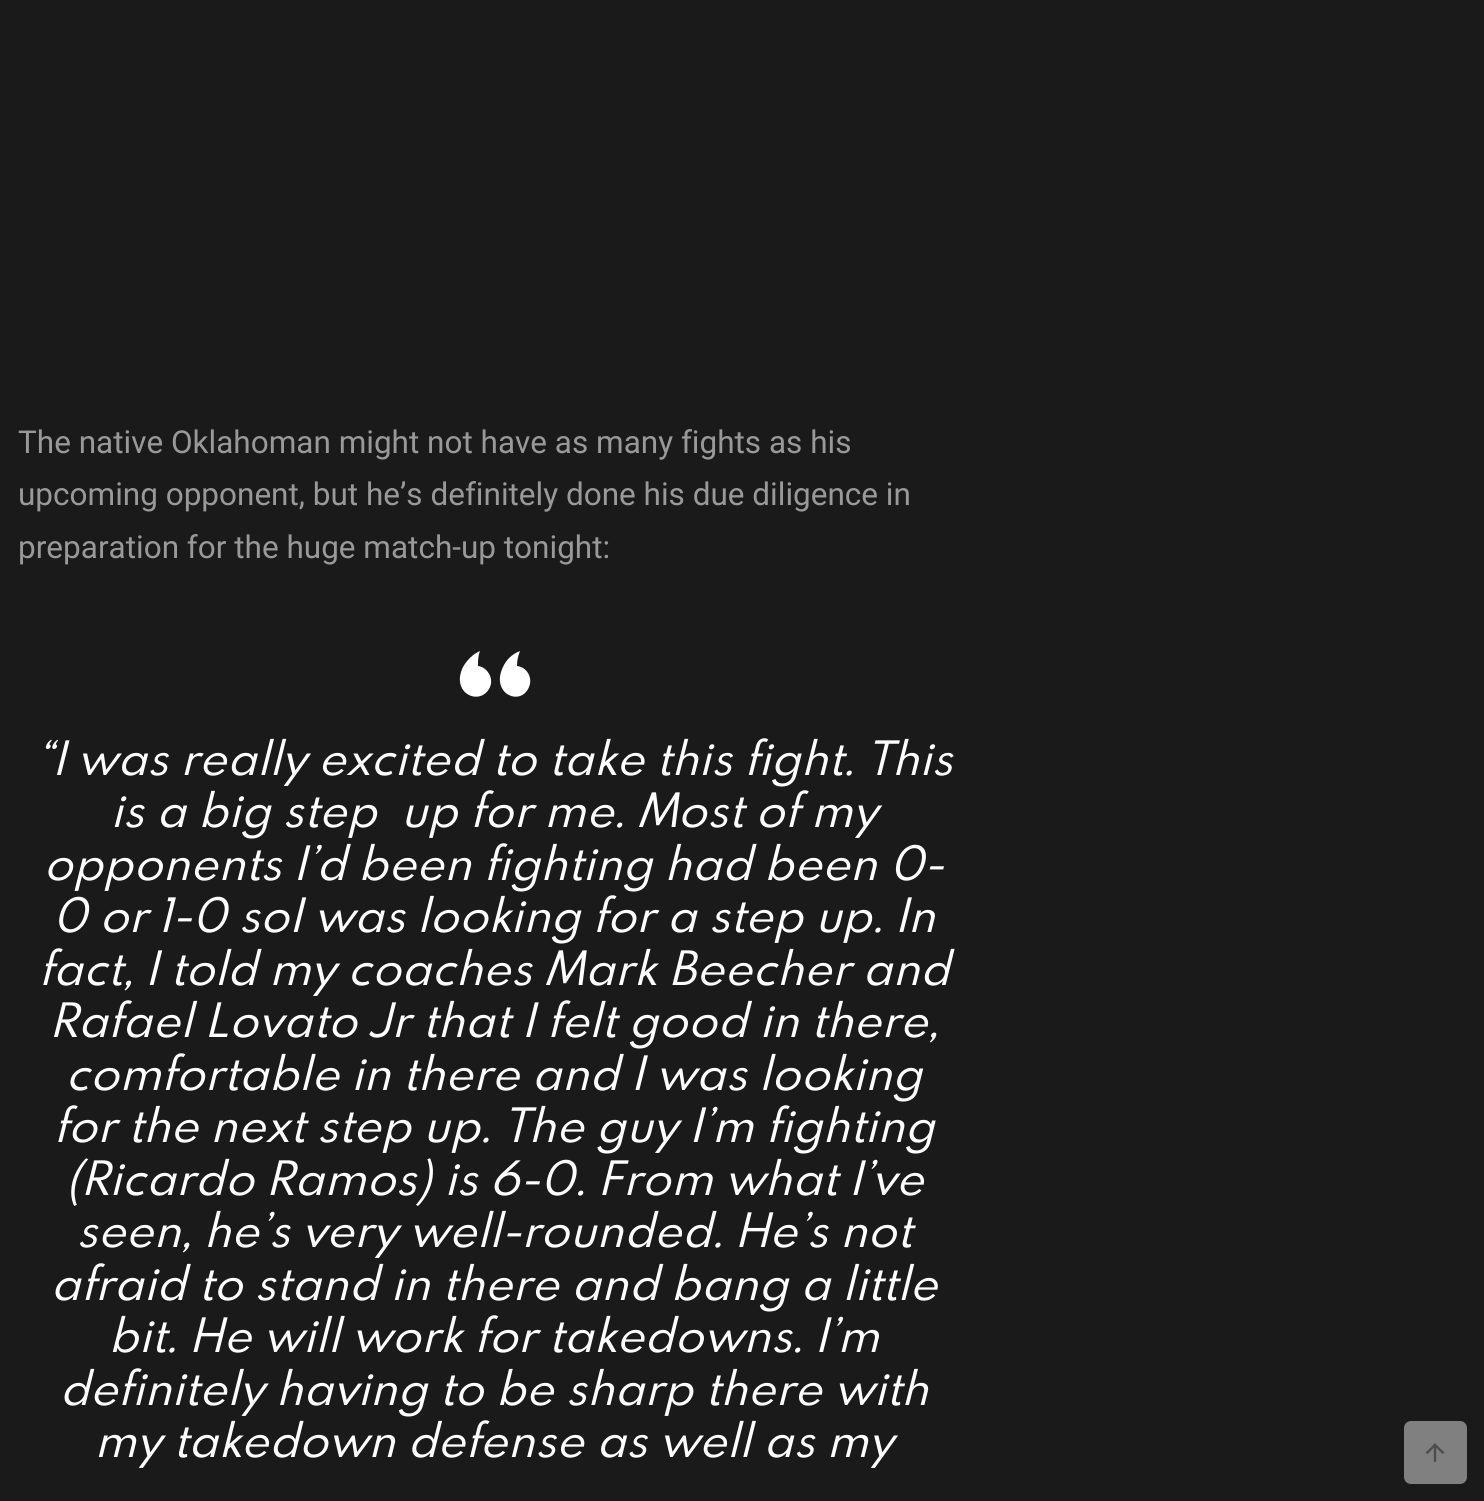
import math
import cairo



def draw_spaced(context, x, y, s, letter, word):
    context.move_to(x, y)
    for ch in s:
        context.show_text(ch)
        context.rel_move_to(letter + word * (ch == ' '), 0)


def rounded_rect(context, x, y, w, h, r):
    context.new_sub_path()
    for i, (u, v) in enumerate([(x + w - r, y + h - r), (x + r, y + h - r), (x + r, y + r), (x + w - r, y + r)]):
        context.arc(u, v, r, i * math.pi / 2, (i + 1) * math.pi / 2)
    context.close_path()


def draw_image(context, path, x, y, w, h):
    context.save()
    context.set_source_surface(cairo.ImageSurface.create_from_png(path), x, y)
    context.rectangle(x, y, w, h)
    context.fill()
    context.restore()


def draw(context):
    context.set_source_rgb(26 / 255, 26 / 255, 26 / 255)
    context.paint()
    context.set_source_rgb(1, 1, 1)
    context.new_path()
    context.move_to(478, 666)
    context.curve_to(478, 661, 478, 656, 480, 651)
    context.curve_to(473, 654, 467, 660, 463, 667)
    context.curve_to(450, 694, 481, 707, 490, 687)
    context.curve_to(494, 678, 487, 667, 478, 666)
    context.close_path()
    context.move_to(517, 666)
    context.curve_to(517, 661, 518, 656, 520, 651)
    context.curve_to(512, 654, 506, 660, 503, 667)
    context.curve_to(490, 694, 521, 707, 529, 687)
    context.curve_to(533, 678, 527, 667, 517, 666)
    context.close_path()
    context.fill()
    context.set_source_rgb(128 / 255, 128 / 255, 128 / 255)
    rounded_rect(context, 1404, 1421, 63, 63, 7)
    context.fill()
    draw_image(context, "images/1.png", 1425, 1443, 20, 19)
    context.select_font_face("Roboto")
    context.set_font_size(31.5)
    context.set_source_rgb(153 / 255, 153 / 255, 153 / 255)
    context.move_to(18, 453)
    context.show_text("The native Oklahoman might not have as many fights as his")
    context.move_to(18, 505)
    context.show_text("upcoming opponent, but he’s definitely done his due diligence in")
    context.move_to(18, 558)
    context.show_text("preparation for the huge match-up tonight:")
    context.select_font_face("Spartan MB", cairo.FontSlant.ITALIC)
    context.set_font_size(42)
    context.set_source_rgb(1, 1, 1)
    draw_spaced(context, 37, 775, "“I was really excited to take this fight. This", 1.05, 0)
    draw_spaced(context, 111, 827, "is a big step  up for me. Most of my", 1.05, 0)
    draw_spaced(context, 44, 880, "opponents I’d been fighting had been 0-", 1.05, 0)
    draw_spaced(context, 53, 932, "0 or 1-0 soI was looking for a step up. In", 1.05, 0)
    draw_spaced(context, 39, 985, "fact, I told my coaches Mark Beecher and", 1.05, 0)
    draw_spaced(context, 50, 1037, "Rafael Lovato Jr that I felt good in there,", 1.05, 0)
    draw_spaced(context, 66, 1090, "comfortable in there and I was looking", 1.05, 0)
    draw_spaced(context, 54, 1142, "for the next step up. The guy I’m fighting", 1.05, 0)
    draw_spaced(context, 66, 1195, "(Ricardo Ramos) is 6-0. From what I’ve", 1.05, 0)
    draw_spaced(context, 77, 1247, "seen, he’s very well-rounded. He’s not", 1.05, 0)
    draw_spaced(context, 51, 1300, "afraid to stand in there and bang a little", 1.05, 0)
    draw_spaced(context, 109, 1352, "bit. He will work for takedowns. I’m", 1.05, 0)
    draw_spaced(context, 60, 1405, "definitely having to be sharp there with", 1.05, 0)
    draw_spaced(context, 95, 1457, "my takedown defense as well as my", 1.05, 0)


surface = cairo.ImageSurface(cairo.Format.RGB24, 1484, 1501)
context = cairo.Context(surface)
options = cairo.FontOptions()
options.set_hint_metrics(cairo.HintMetrics.OFF)
options.set_hint_style(cairo.HintStyle.NONE)
context.set_font_options(options)
context.set_miter_limit(4)
draw(context)
surface.write_to_png("out.png")
